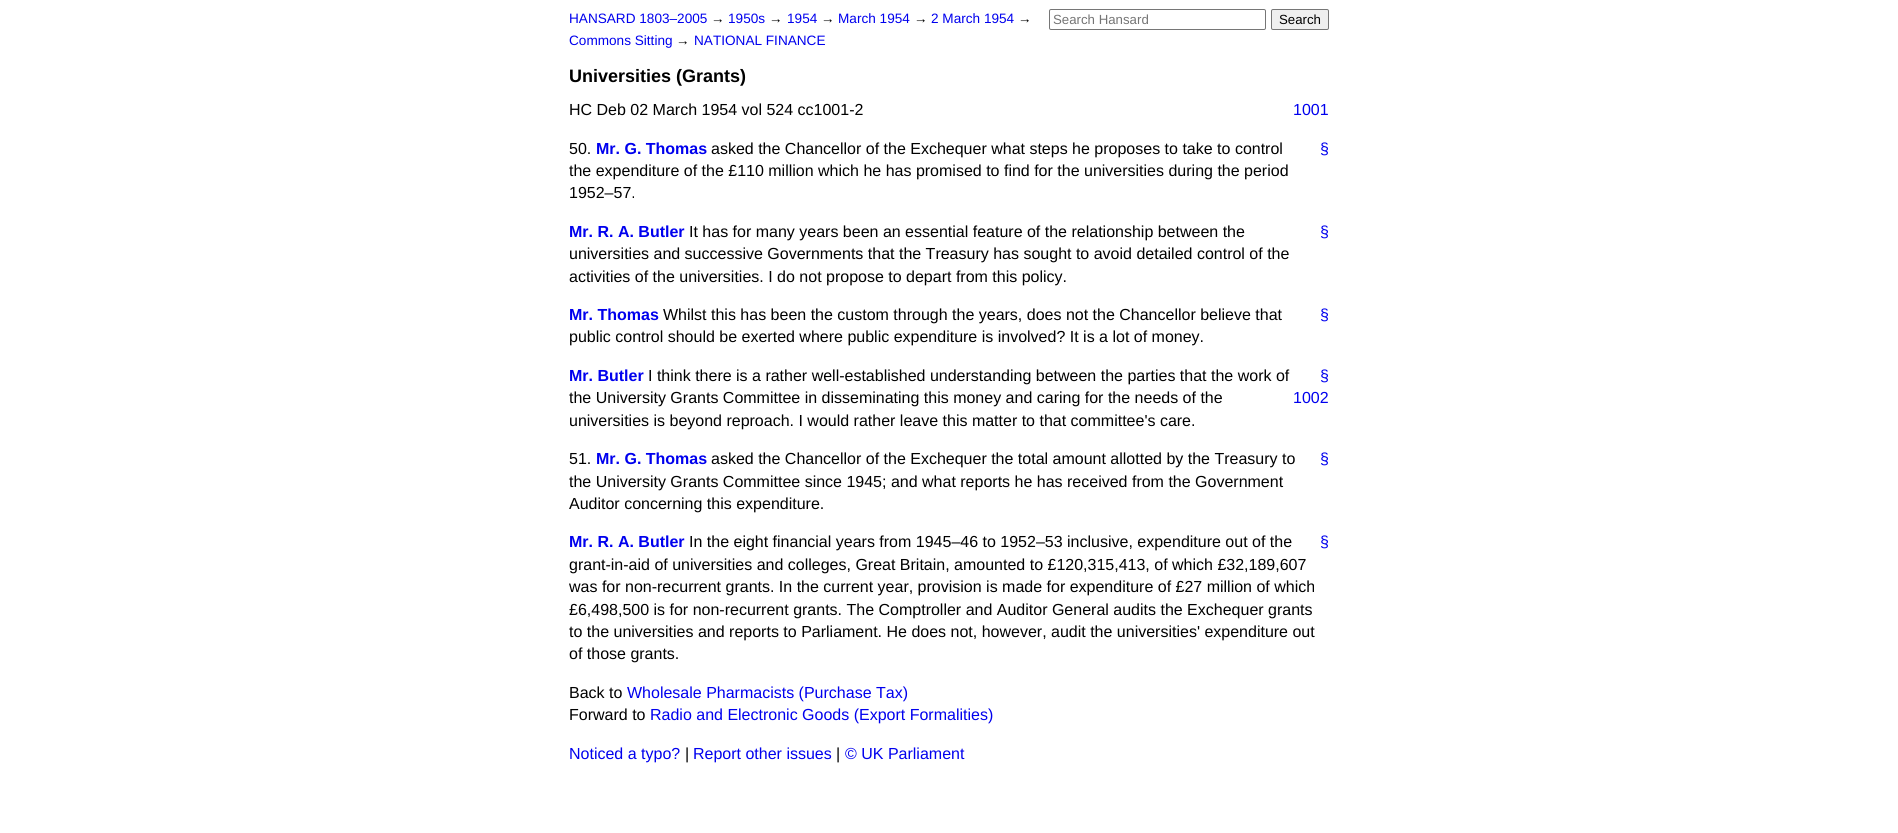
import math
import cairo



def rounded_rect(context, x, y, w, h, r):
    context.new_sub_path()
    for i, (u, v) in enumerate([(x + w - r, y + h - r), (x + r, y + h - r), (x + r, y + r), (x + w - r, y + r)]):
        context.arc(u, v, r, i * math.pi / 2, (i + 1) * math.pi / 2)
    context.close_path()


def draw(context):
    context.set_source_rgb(1, 1, 1)
    context.paint()
    rounded_rect(context, 1049.5, 9.5, 216, 20, 1.5)
    context.set_source_rgb(118 / 255, 118 / 255, 118 / 255)
    context.set_line_width(1)
    context.stroke()
    context.set_source_rgb(239 / 255, 239 / 255, 239 / 255)
    rounded_rect(context, 1271.5, 9.5, 57, 20, 1.5)
    context.fill_preserve()
    context.set_source_rgb(118 / 255, 118 / 255, 118 / 255)
    context.stroke()
    context.select_font_face("Liberation Sans")
    context.set_font_size(13.6)
    context.set_source_rgb(0, 0, 238 / 255)
    context.move_to(569, 23)
    context.show_text("HANSARD 1803–2005")
    context.set_source_rgb(0, 0, 0)
    context.move_to(711, 23)
    context.show_text("→")
    context.set_source_rgb(0, 0, 238 / 255)
    context.move_to(728, 23)
    context.show_text("1950s")
    context.set_source_rgb(0, 0, 0)
    context.move_to(769, 23)
    context.show_text("→")
    context.set_source_rgb(0, 0, 238 / 255)
    context.move_to(787, 23)
    context.show_text("1954")
    context.set_source_rgb(0, 0, 0)
    context.move_to(821, 23)
    context.show_text("→")
    context.set_source_rgb(0, 0, 238 / 255)
    context.move_to(838, 23)
    context.show_text("March 1954")
    context.set_source_rgb(0, 0, 0)
    context.move_to(914, 23)
    context.show_text("→")
    context.set_source_rgb(0, 0, 238 / 255)
    context.move_to(931, 23)
    context.show_text("2 March 1954")
    context.set_source_rgb(0, 0, 0)
    context.move_to(1018, 23)
    context.show_text("→")
    context.set_source_rgb(0, 0, 238 / 255)
    context.move_to(569, 45)
    context.show_text("Commons Sitting")
    context.set_source_rgb(0, 0, 0)
    context.move_to(676, 45)
    context.show_text("→")
    context.set_source_rgb(0, 0, 238 / 255)
    context.move_to(694, 45)
    context.show_text("NATIONAL FINANCE")
    context.set_font_size(13.25)
    context.set_source_rgb(117 / 255, 117 / 255, 117 / 255)
    context.move_to(1053, 24)
    context.show_text("Search Hansard")
    context.set_source_rgb(0, 0, 0)
    context.move_to(1279, 24)
    context.show_text("Search")
    context.select_font_face("Liberation Sans", cairo.FontSlant.NORMAL, cairo.FontWeight.BOLD)
    context.set_font_size(18)
    context.move_to(569, 82)
    context.show_text("Universities (Grants)")
    context.select_font_face("Liberation Sans")
    context.set_font_size(16)
    context.move_to(569, 115)
    context.show_text("HC Deb 02 March 1954 vol 524 cc1001-2")
    context.set_source_rgb(0, 0, 238 / 255)
    context.move_to(1293, 115)
    context.show_text("1001")
    context.set_source_rgb(0, 0, 0)
    context.move_to(569, 154)
    context.show_text("50.")
    context.select_font_face("Liberation Sans", cairo.FontSlant.NORMAL, cairo.FontWeight.BOLD)
    context.set_source_rgb(0, 0, 238 / 255)
    context.move_to(596, 154)
    context.show_text("Mr. G. Thomas")
    context.select_font_face("Liberation Sans")
    context.set_source_rgb(0, 0, 0)
    context.move_to(711, 154)
    context.show_text("asked the Chancellor of the Exchequer what steps he proposes to take to control")
    context.set_source_rgb(0, 0, 238 / 255)
    context.move_to(1320, 154)
    context.show_text("§")
    context.set_source_rgb(0, 0, 0)
    context.move_to(569, 176)
    context.show_text("the expenditure of the £110 million which he has promised to find for the universities during the period")
    context.move_to(569, 198)
    context.show_text("1952–57.")
    context.select_font_face("Liberation Sans", cairo.FontSlant.NORMAL, cairo.FontWeight.BOLD)
    context.set_source_rgb(0, 0, 238 / 255)
    context.move_to(569, 237)
    context.show_text("Mr. R. A. Butler")
    context.select_font_face("Liberation Sans")
    context.set_source_rgb(0, 0, 0)
    context.move_to(689, 237)
    context.show_text("It has for many years been an essential feature of the relationship between the")
    context.set_source_rgb(0, 0, 238 / 255)
    context.move_to(1320, 237)
    context.show_text("§")
    context.set_source_rgb(0, 0, 0)
    context.move_to(569, 259)
    context.show_text("universities and successive Governments that the Treasury has sought to avoid detailed control of the")
    context.move_to(569, 282)
    context.show_text("activities of the universities. I do not propose to depart from this policy.")
    context.select_font_face("Liberation Sans", cairo.FontSlant.NORMAL, cairo.FontWeight.BOLD)
    context.set_source_rgb(0, 0, 238 / 255)
    context.move_to(569, 320)
    context.show_text("Mr. Thomas")
    context.select_font_face("Liberation Sans")
    context.set_source_rgb(0, 0, 0)
    context.move_to(663, 320)
    context.show_text("Whilst this has been the custom through the years, does not the Chancellor believe that")
    context.set_source_rgb(0, 0, 238 / 255)
    context.move_to(1320, 320)
    context.show_text("§")
    context.set_source_rgb(0, 0, 0)
    context.move_to(569, 342)
    context.show_text("public control should be exerted where public expenditure is involved? It is a lot of money.")
    context.move_to(648, 381)
    context.show_text("I think there is a rather well-established understanding between the parties that the work of")
    context.move_to(569, 403)
    context.show_text("the University Grants Committee in disseminating this money and caring for the needs of the")
    context.set_source_rgb(0, 0, 238 / 255)
    context.move_to(1293, 403)
    context.show_text("1002")
    context.set_source_rgb(0, 0, 0)
    context.move_to(569, 426)
    context.show_text("universities is beyond reproach. I would rather leave this matter to that committee's care.")
    context.select_font_face("Liberation Sans", cairo.FontSlant.NORMAL, cairo.FontWeight.BOLD)
    context.set_source_rgb(0, 0, 238 / 255)
    context.move_to(569, 381)
    context.show_text("Mr. Butler")
    context.select_font_face("Liberation Sans")
    context.move_to(1320, 381)
    context.show_text("§")
    context.set_source_rgb(0, 0, 0)
    context.move_to(569, 464)
    context.show_text("51.")
    context.select_font_face("Liberation Sans", cairo.FontSlant.NORMAL, cairo.FontWeight.BOLD)
    context.set_source_rgb(0, 0, 238 / 255)
    context.move_to(596, 464)
    context.show_text("Mr. G. Thomas")
    context.select_font_face("Liberation Sans")
    context.set_source_rgb(0, 0, 0)
    context.move_to(711, 464)
    context.show_text("asked the Chancellor of the Exchequer the total amount allotted by the Treasury to")
    context.set_source_rgb(0, 0, 238 / 255)
    context.move_to(1320, 464)
    context.show_text("§")
    context.set_source_rgb(0, 0, 0)
    context.move_to(569, 487)
    context.show_text("the University Grants Committee since 1945; and what reports he has received from the Government")
    context.move_to(569, 509)
    context.show_text("Auditor concerning this expenditure.")
    context.select_font_face("Liberation Sans", cairo.FontSlant.NORMAL, cairo.FontWeight.BOLD)
    context.set_source_rgb(0, 0, 238 / 255)
    context.move_to(569, 547)
    context.show_text("Mr. R. A. Butler")
    context.select_font_face("Liberation Sans")
    context.set_source_rgb(0, 0, 0)
    context.move_to(689, 547)
    context.show_text("In the eight financial years from 1945–46 to 1952–53 inclusive, expenditure out of the")
    context.set_source_rgb(0, 0, 238 / 255)
    context.move_to(1320, 547)
    context.show_text("§")
    context.set_source_rgb(0, 0, 0)
    context.move_to(569, 570)
    context.show_text("grant-in-aid of universities and colleges, Great Britain, amounted to £120,315,413, of which £32,189,607")
    context.move_to(569, 592)
    context.show_text("was for non-recurrent grants. In the current year, provision is made for expenditure of £27 million of which")
    context.move_to(569, 615)
    context.show_text("£6,498,500 is for non-recurrent grants. The Comptroller and Auditor General audits the Exchequer grants")
    context.move_to(569, 637)
    context.show_text("to the universities and reports to Parliament. He does not, however, audit the universities' expenditure out")
    context.move_to(569, 659)
    context.show_text("of those grants.")
    context.move_to(569, 698)
    context.show_text("Back to")
    context.set_source_rgb(0, 0, 238 / 255)
    context.move_to(627, 698)
    context.show_text("Wholesale Pharmacists (Purchase Tax)")
    context.set_source_rgb(0, 0, 0)
    context.move_to(569, 720)
    context.show_text("Forward to")
    context.set_source_rgb(0, 0, 238 / 255)
    context.move_to(650, 720)
    context.show_text("Radio and Electronic Goods (Export Formalities)")
    context.move_to(569, 759)
    context.show_text("Noticed a typo?")
    context.set_source_rgb(0, 0, 0)
    context.move_to(685, 759)
    context.show_text("|")
    context.set_source_rgb(0, 0, 238 / 255)
    context.move_to(693, 759)
    context.show_text("Report other issues")
    context.set_source_rgb(0, 0, 0)
    context.move_to(836, 759)
    context.show_text("|")
    context.set_source_rgb(0, 0, 238 / 255)
    context.move_to(845, 759)
    context.show_text("© UK Parliament")


surface = cairo.ImageSurface(cairo.Format.RGB24, 1898, 833)
context = cairo.Context(surface)
options = cairo.FontOptions()
options.set_hint_metrics(cairo.HintMetrics.OFF)
options.set_hint_style(cairo.HintStyle.NONE)
context.set_font_options(options)
context.set_miter_limit(4)
draw(context)
surface.write_to_png("out.png")
